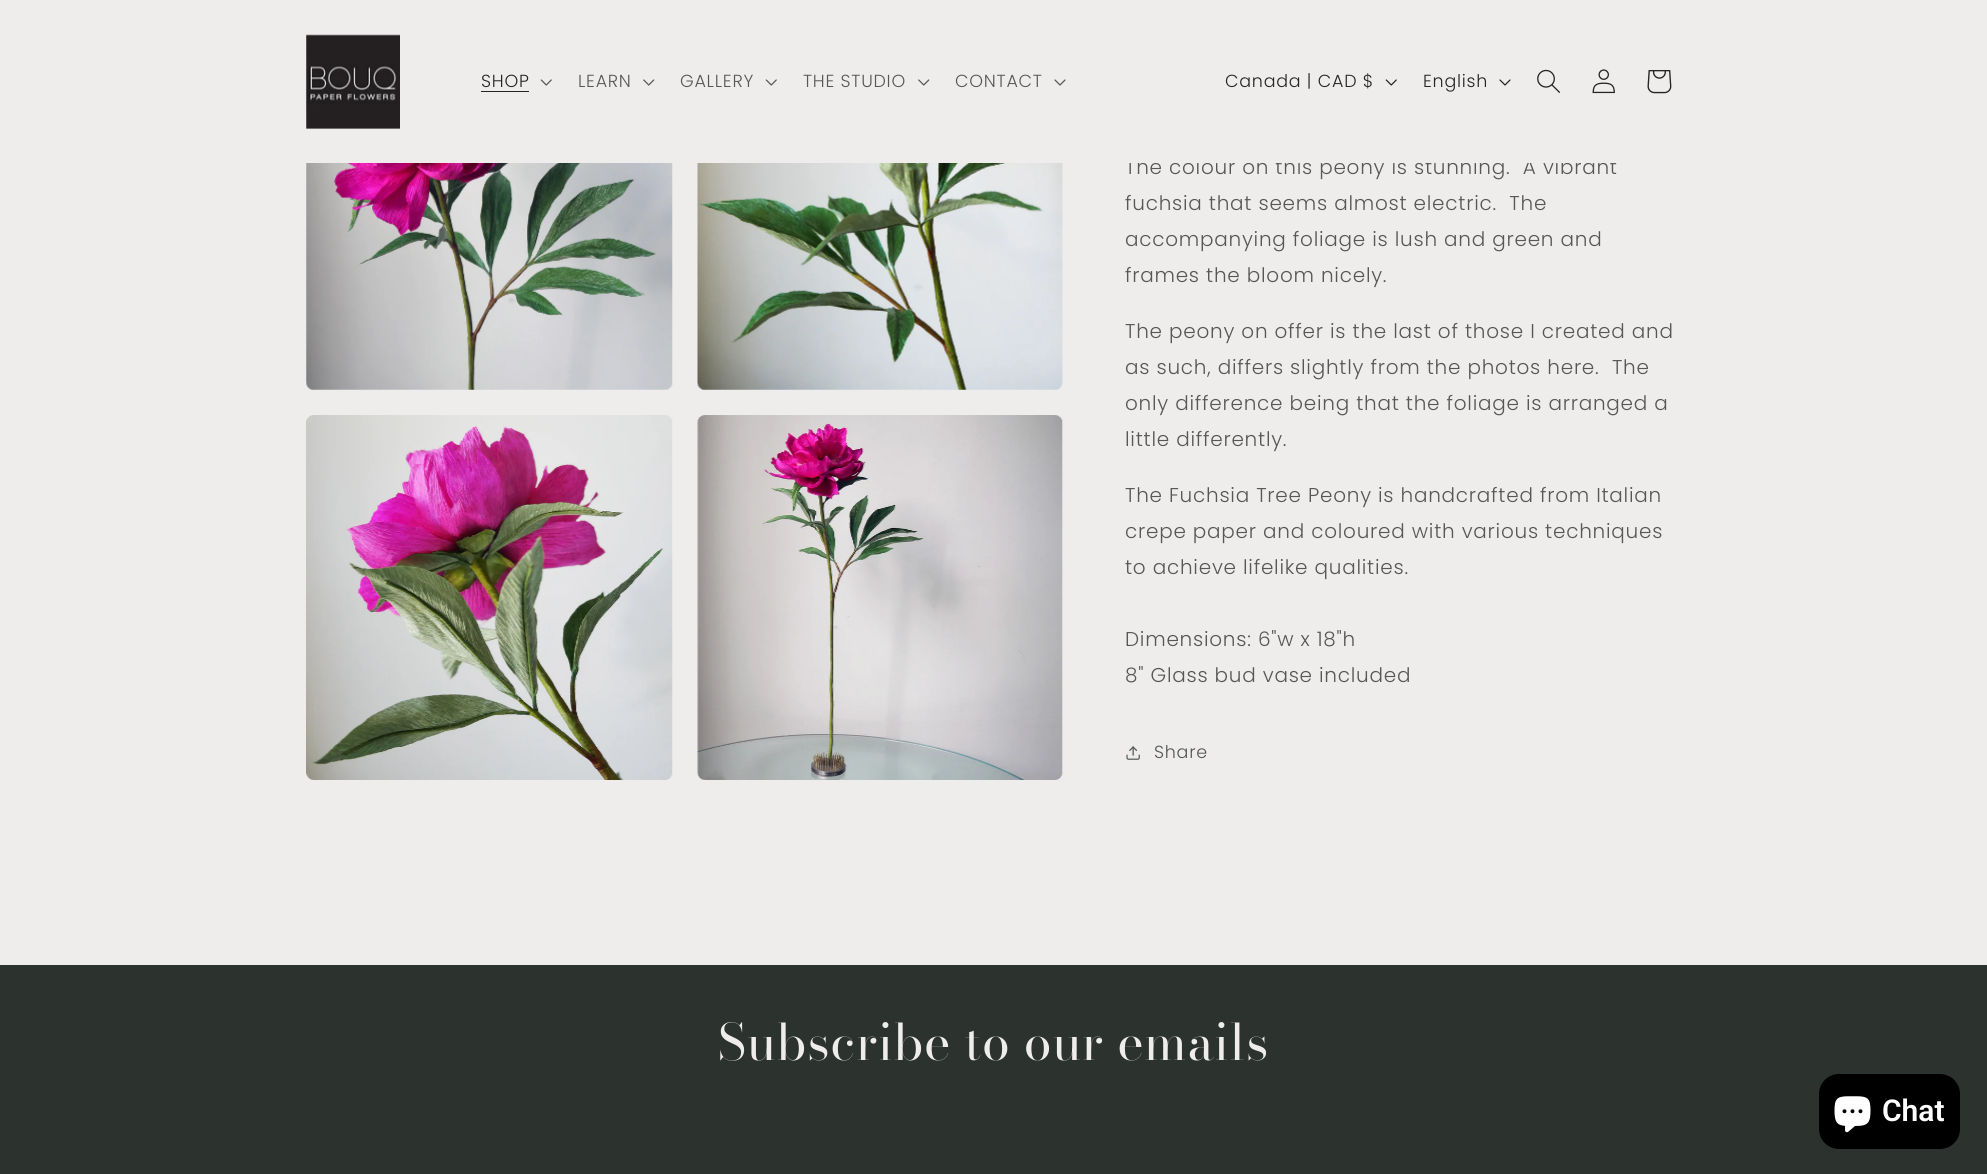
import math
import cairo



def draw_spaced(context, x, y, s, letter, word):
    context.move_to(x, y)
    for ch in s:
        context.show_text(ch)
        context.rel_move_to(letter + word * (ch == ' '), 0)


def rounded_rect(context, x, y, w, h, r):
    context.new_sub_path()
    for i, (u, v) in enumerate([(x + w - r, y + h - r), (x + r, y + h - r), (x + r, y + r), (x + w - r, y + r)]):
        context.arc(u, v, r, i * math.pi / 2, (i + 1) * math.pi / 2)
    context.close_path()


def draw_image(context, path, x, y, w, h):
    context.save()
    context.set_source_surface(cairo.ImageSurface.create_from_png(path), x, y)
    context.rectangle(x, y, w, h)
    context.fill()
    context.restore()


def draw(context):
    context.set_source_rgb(239 / 255, 236 / 255, 236 / 255)
    context.paint()
    draw_image(context, "images/1.png", 306, 34, 94, 95)
    context.set_source_rgb(37 / 255, 37 / 255, 37 / 255)
    context.rectangle(481, 91, 48, 1)
    context.fill()
    draw_image(context, "images/2.png", 540, 79, 12, 7)
    draw_image(context, "images/3.png", 643, 79, 12, 7)
    draw_image(context, "images/2.png", 765, 79, 12, 7)
    draw_image(context, "images/3.png", 918, 79, 12, 7)
    draw_image(context, "images/4.png", 1054, 79, 12, 7)
    draw_image(context, "images/5.png", 1385, 79, 12, 7)
    draw_image(context, "images/6.png", 1499, 79, 12, 7)
    draw_image(context, "images/7.png", 1537, 69, 23, 24)
    draw_image(context, "images/8.png", 1592, 69, 23, 25)
    draw_image(context, "images/9.png", 1647, 70, 25, 24)
    draw_image(context, "images/10.png", 306, 163, 367, 227)
    draw_image(context, "images/11.png", 697, 163, 366, 227)
    draw_image(context, "images/12.png", 306, 415, 367, 365)
    draw_image(context, "images/13.png", 697, 415, 366, 365)
    draw_image(context, "images/14.png", 1126, 746, 14, 14)
    context.set_source_rgb(44 / 255, 51 / 255, 47 / 255)
    context.rectangle(0, 965, 1987, 209)
    context.fill()
    context.set_source_rgb(0, 0, 0)
    rounded_rect(context, 1819, 1074, 141, 75, 20)
    context.fill()
    draw_image(context, "images/15.png", 1834, 1096, 37, 37)
    context.select_font_face("Poppins Light")
    context.set_font_size(17.5)
    context.set_source_rgb(37 / 255, 37 / 255, 37 / 255)
    draw_spaced(context, 481, 87, "SHOP", 0.75, 0)
    context.set_source_rgb(88 / 255, 87 / 255, 87 / 255)
    draw_spaced(context, 578, 87, "LEARN", 0.75, 0)
    draw_spaced(context, 680, 87, "GALLERY", 0.75, 0)
    draw_spaced(context, 803, 87, "THE STUDIO", 0.75, 0)
    draw_spaced(context, 955, 87, "CONTACT", 0.75, 0)
    context.set_source_rgb(37 / 255, 37 / 255, 37 / 255)
    draw_spaced(context, 1225, 87, "Canada | CAD $", 0.75, 0)
    draw_spaced(context, 1423, 87, "English", 0.75, 0)
    context.set_font_size(20)
    context.set_source_rgb(88 / 255, 87 / 255, 87 / 255)
    draw_spaced(context, 1125, 174, "The colour on this peony is stunning.  A vibrant", 0.75, 0)
    context.set_source_rgb(239 / 255, 236 / 255, 236 / 255)
    context.rectangle(1125, 159, 489, 4)
    context.fill()
    context.set_source_rgb(88 / 255, 87 / 255, 87 / 255)
    draw_spaced(context, 1125, 210, "fuchsia that seems almost electric.  The", 0.75, 0)
    draw_spaced(context, 1125, 246, "accompanying foliage is lush and green and", 0.75, 0)
    draw_spaced(context, 1125, 282, "frames the bloom nicely.", 0.75, 0)
    draw_spaced(context, 1125, 338, "The peony on offer is the last of those I created and", 0.75, 0)
    draw_spaced(context, 1125, 374, "as such, differs slightly from the photos here.  The", 0.75, 0)
    draw_spaced(context, 1125, 410, "only difference being that the foliage is arranged a", 0.75, 0)
    draw_spaced(context, 1125, 446, "little differently.", 0.75, 0)
    draw_spaced(context, 1125, 502, "The Fuchsia Tree Peony is handcrafted from Italian", 0.75, 0)
    draw_spaced(context, 1125, 538, "crepe paper and coloured with various techniques", 0.75, 0)
    draw_spaced(context, 1125, 574, "to achieve lifelike qualities.", 0.75, 0)
    draw_spaced(context, 1125, 646, "Dimensions: 6\"w x 18\"h", 0.75, 0)
    draw_spaced(context, 1125, 682, "8\" Glass bud vase included", 0.75, 0)
    context.set_font_size(17.5)
    context.set_source_rgb(80 / 255, 86 / 255, 85 / 255)
    draw_spaced(context, 1154, 758, "Share", 0.75, 0)
    context.select_font_face("Bodoni Moda")
    context.set_font_size(50)
    context.set_source_rgb(239 / 255, 236 / 255, 236 / 255)
    draw_spaced(context, 718, 1060, "Subscribe to our emails", 0.75, 0)
    context.select_font_face("Roboto SemiBold")
    context.set_font_size(30)
    context.set_source_rgb(1, 1, 1)
    context.move_to(1882, 1121)
    context.show_text("Chat")


surface = cairo.ImageSurface(cairo.Format.RGB24, 1987, 1174)
context = cairo.Context(surface)
options = cairo.FontOptions()
options.set_hint_metrics(cairo.HintMetrics.OFF)
options.set_hint_style(cairo.HintStyle.NONE)
context.set_font_options(options)
context.set_miter_limit(4)
draw(context)
surface.write_to_png("out.png")
